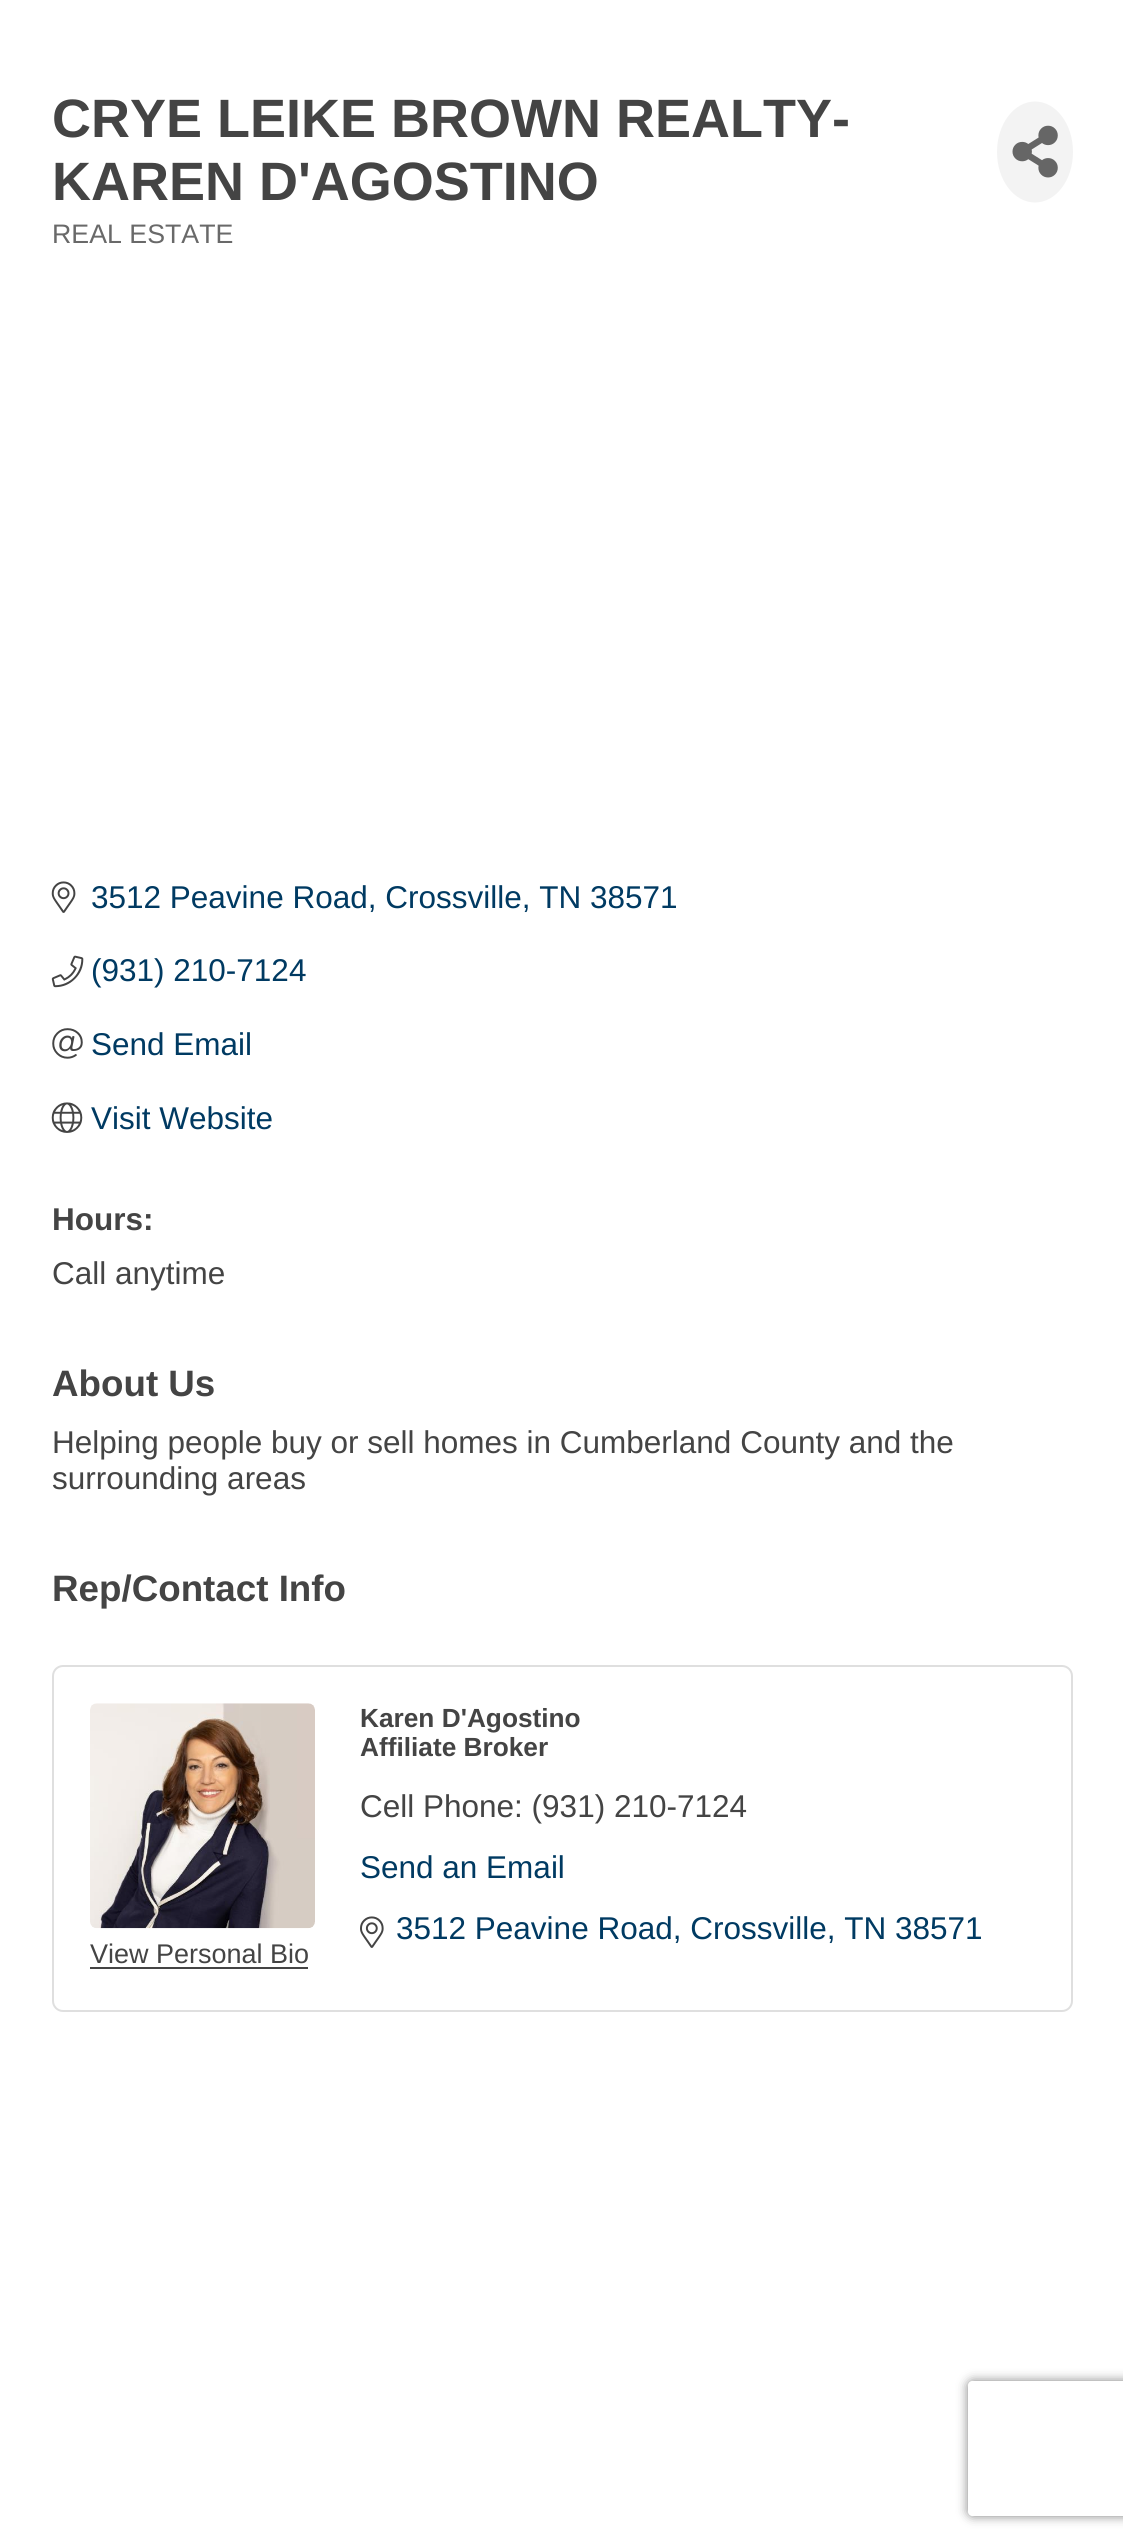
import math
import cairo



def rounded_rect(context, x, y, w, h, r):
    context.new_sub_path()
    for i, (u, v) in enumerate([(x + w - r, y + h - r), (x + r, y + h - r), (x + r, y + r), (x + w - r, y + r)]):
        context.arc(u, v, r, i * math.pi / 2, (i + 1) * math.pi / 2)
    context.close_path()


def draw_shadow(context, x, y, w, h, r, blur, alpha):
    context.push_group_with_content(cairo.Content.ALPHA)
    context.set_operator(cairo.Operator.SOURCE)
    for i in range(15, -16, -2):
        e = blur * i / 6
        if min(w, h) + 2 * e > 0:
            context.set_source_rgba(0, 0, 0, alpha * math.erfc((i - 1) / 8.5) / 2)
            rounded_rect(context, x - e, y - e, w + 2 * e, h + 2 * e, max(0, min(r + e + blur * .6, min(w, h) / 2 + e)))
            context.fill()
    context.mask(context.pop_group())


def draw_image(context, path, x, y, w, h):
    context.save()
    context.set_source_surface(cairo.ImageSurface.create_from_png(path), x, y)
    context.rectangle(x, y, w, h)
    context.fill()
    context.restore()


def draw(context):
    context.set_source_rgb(1, 1, 1)
    context.paint()
    context.set_source_rgb(243 / 255, 243 / 255, 243 / 255)
    context.new_path()
    context.move_to(1035, 101.5)
    context.curve_to(1056, 101.5, 1073, 124, 1073, 152)
    context.curve_to(1073, 180, 1056, 202.5, 1035, 202.5)
    context.curve_to(1014, 202.5, 997, 180, 997, 152)
    context.curve_to(997, 124, 1014, 101.5, 1035, 101.5)
    context.close_path()
    context.fill()
    draw_image(context, "images/1.png", 1012, 125, 46, 53)
    draw_image(context, "images/2.png", 51, 881, 25, 32)
    draw_image(context, "images/3.png", 51, 955, 33, 33)
    draw_image(context, "images/4.png", 52, 1028, 31, 31)
    draw_image(context, "images/5.png", 51, 1102, 32, 31)
    rounded_rect(context, 53, 1666, 1019, 345, 10)
    context.set_source_rgb(223 / 255, 223 / 255, 223 / 255)
    context.stroke()
    draw_image(context, "images/6.png", 360, 1916, 24, 32)
    draw_image(context, "images/7.png", 90, 1703, 225, 226)
    context.set_source_rgb(68 / 255, 68 / 255, 68 / 255)
    context.rectangle(90, 1967, 218, 2)
    context.fill()
    context.save()
    context.set_fill_rule(cairo.FillRule.EVEN_ODD)
    context.new_path()
    context.move_to(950, 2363)
    context.line_to(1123, 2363)
    context.line_to(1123, 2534)
    context.line_to(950, 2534)
    context.close_path()
    context.move_to(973, 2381)
    context.line_to(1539, 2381)
    context.curve_to(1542, 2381, 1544, 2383, 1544, 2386)
    context.line_to(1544, 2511)
    context.curve_to(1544, 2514, 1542, 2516, 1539, 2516)
    context.line_to(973, 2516)
    context.curve_to(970, 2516, 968, 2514, 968, 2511)
    context.line_to(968, 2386)
    context.curve_to(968, 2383, 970, 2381, 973, 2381)
    context.close_path()
    context.clip()
    context.set_source_rgb(128 / 255, 128 / 255, 128 / 255)
    draw_shadow(context, 968, 2381, 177, 135, 5, 5.5, 1)
    context.restore()
    context.select_font_face("Liberation Sans", cairo.FontSlant.NORMAL, cairo.FontWeight.BOLD)
    context.set_font_size(54)
    context.move_to(52, 137)
    context.show_text("CRYE LEIKE BROWN REALTY-")
    context.move_to(52, 200)
    context.show_text("KAREN D'AGOSTINO")
    context.select_font_face("Liberation Sans")
    context.set_font_size(26.75)
    context.set_source_rgb(105 / 255, 105 / 255, 105 / 255)
    context.move_to(52, 243)
    context.show_text("REAL ESTATE")
    context.set_font_size(31.5)
    context.set_source_rgb(0, 58 / 255, 98 / 255)
    context.move_to(91, 908)
    context.show_text("3512 Peavine Road, Crossville, TN 38571")
    context.move_to(91, 981)
    context.show_text("(931) 210-7124")
    context.move_to(91, 1055)
    context.show_text("Send Email")
    context.move_to(91, 1129)
    context.show_text("Visit Website")
    context.select_font_face("Liberation Sans", cairo.FontSlant.NORMAL, cairo.FontWeight.BOLD)
    context.set_source_rgb(68 / 255, 68 / 255, 68 / 255)
    context.move_to(52, 1230)
    context.show_text("Hours:")
    context.select_font_face("Liberation Sans")
    context.move_to(52, 1284)
    context.show_text("Call anytime")
    context.select_font_face("Liberation Sans", cairo.FontSlant.NORMAL, cairo.FontWeight.BOLD)
    context.set_font_size(36.75)
    context.move_to(52, 1396)
    context.show_text("About Us")
    context.select_font_face("Liberation Sans")
    context.set_font_size(31.5)
    context.move_to(52, 1453)
    context.show_text("Helping people buy or sell homes in Cumberland County and the")
    context.move_to(52, 1489)
    context.show_text("surrounding areas")
    context.select_font_face("Liberation Sans", cairo.FontSlant.NORMAL, cairo.FontWeight.BOLD)
    context.set_font_size(36.75)
    context.move_to(52, 1601)
    context.show_text("Rep/Contact Info")
    context.set_font_size(26.25)
    context.move_to(360, 1727)
    context.show_text("Karen D'Agostino")
    context.move_to(360, 1756)
    context.show_text("Affiliate Broker")
    context.select_font_face("Liberation Sans")
    context.set_font_size(31.5)
    context.move_to(360, 1817)
    context.show_text("Cell Phone: (931) 210-7124")
    context.set_source_rgb(0, 58 / 255, 98 / 255)
    context.move_to(360, 1878)
    context.show_text("Send an Email")
    context.move_to(396, 1939)
    context.show_text("3512 Peavine Road, Crossville, TN 38571")
    context.set_font_size(27)
    context.set_source_rgb(68 / 255, 68 / 255, 68 / 255)
    context.move_to(90, 1963)
    context.show_text("View Personal Bio")


surface = cairo.ImageSurface(cairo.Format.RGB24, 1123, 2547)
context = cairo.Context(surface)
options = cairo.FontOptions()
options.set_hint_metrics(cairo.HintMetrics.OFF)
options.set_hint_style(cairo.HintStyle.NONE)
context.set_font_options(options)
context.set_miter_limit(4)
draw(context)
surface.write_to_png("out.png")
